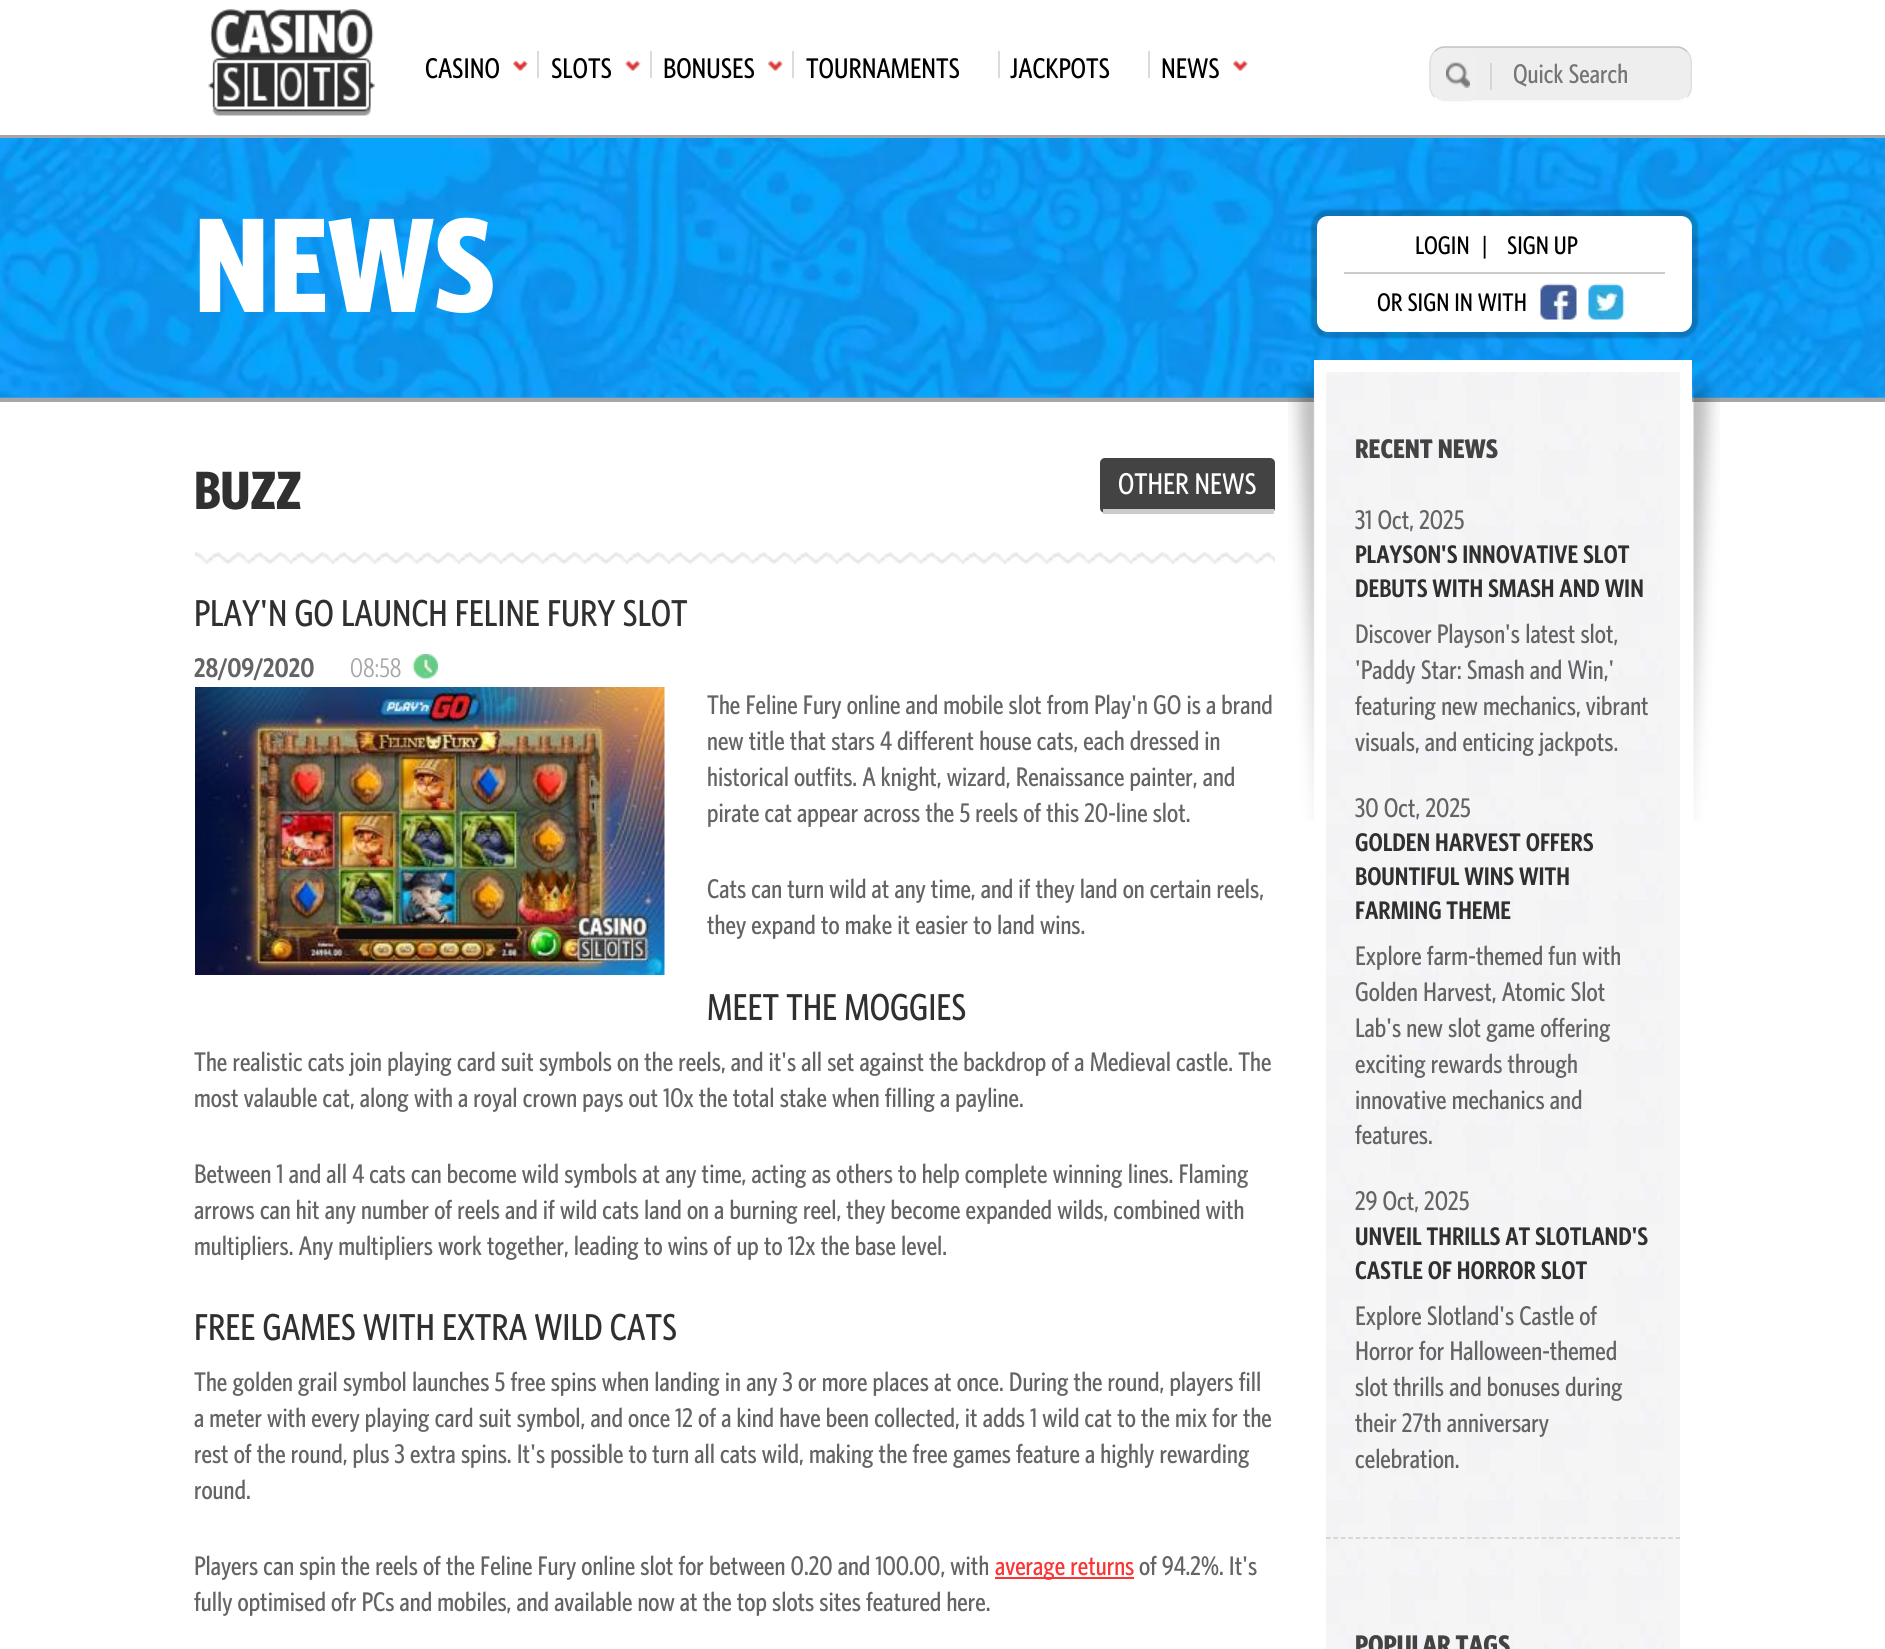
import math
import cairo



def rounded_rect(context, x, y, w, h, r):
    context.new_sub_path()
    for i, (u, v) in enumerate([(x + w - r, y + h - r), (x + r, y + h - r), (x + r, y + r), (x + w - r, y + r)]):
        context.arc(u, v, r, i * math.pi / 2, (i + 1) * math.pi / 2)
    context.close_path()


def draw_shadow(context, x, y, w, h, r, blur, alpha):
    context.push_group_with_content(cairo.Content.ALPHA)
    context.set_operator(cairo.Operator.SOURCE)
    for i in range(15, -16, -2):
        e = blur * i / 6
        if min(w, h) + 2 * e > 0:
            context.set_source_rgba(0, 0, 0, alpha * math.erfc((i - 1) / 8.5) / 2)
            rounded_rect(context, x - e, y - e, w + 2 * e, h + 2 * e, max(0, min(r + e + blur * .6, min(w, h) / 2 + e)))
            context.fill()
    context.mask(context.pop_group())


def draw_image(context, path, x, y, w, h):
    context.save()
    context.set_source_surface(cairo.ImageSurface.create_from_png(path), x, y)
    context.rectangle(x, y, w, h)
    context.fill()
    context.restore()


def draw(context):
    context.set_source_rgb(1, 1, 1)
    context.paint()
    context.set_source_rgb(166 / 255, 166 / 255, 166 / 255)
    context.new_path()
    context.move_to(0, 135)
    context.line_to(0, 138)
    context.line_to(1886, 138)
    context.line_to(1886, 3)
    context.line_to(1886, 135)
    context.close_path()
    context.fill()
    draw_image(context, "images/1.png", 208, 9, 167, 107)
    draw_image(context, "images/2.png", 513, 60, 15, 11)
    context.set_source_rgb(219 / 255, 219 / 255, 219 / 255)
    context.rectangle(537, 51, 2, 27)
    context.fill()
    draw_image(context, "images/3.png", 625, 60, 16, 11)
    context.rectangle(650, 51, 2, 27)
    context.fill()
    draw_image(context, "images/4.png", 768, 60, 15, 11)
    context.rectangle(792, 51, 2, 27)
    context.fill()
    context.rectangle(998, 51, 2, 27)
    context.fill()
    context.rectangle(1148, 51, 2, 27)
    context.fill()
    draw_image(context, "images/4.png", 1233, 60, 15, 11)
    context.set_source_rgb(238 / 255, 238 / 255, 238 / 255)
    rounded_rect(context, 1430, 47, 262, 55, 15)
    context.fill()
    context.new_path()
    context.move_to(1434.5, 51.5)
    context.curve_to(1437, 49, 1440.5, 47, 1444.5, 47)
    context.line_to(1677, 47)
    context.curve_to(1681, 47, 1684.5, 49, 1687, 51.5)
    context.set_source_rgb(193 / 255, 193 / 255, 193 / 255)
    context.set_line_width(1.5)
    context.stroke()
    context.new_path()
    context.move_to(1687, 51.5)
    context.curve_to(1693, 57.5, 1691, 66.5, 1691, 74)
    context.curve_to(1691, 82, 1693, 91, 1687, 97)
    context.set_source_rgb(223 / 255, 223 / 255, 223 / 255)
    context.stroke()
    context.new_path()
    context.move_to(1687, 97)
    context.curve_to(1684.5, 99.5, 1681, 101, 1677, 101)
    context.line_to(1444.5, 101)
    context.curve_to(1440.5, 101, 1437, 99.5, 1434.5, 97)
    context.set_source_rgb(1, 1, 1)
    context.stroke()
    context.new_path()
    context.move_to(1434.5, 97)
    context.curve_to(1428.5, 91, 1430, 82, 1430, 74)
    context.curve_to(1430, 66.5, 1428.5, 57.5, 1434.5, 51.5)
    context.set_source_rgb(223 / 255, 223 / 255, 223 / 255)
    context.stroke()
    context.set_source_rgb(239 / 255, 239 / 255, 239 / 255)
    context.new_path()
    context.move_to(1445, 48)
    context.line_to(1468, 48)
    context.curve_to(1472.5, 48, 1476, 51.5, 1476, 56)
    context.line_to(1476, 93)
    context.curve_to(1476, 97.5, 1472.5, 101, 1468, 101)
    context.line_to(1445, 101)
    context.curve_to(1437.5, 101, 1431, 94.5, 1431, 87)
    context.line_to(1431, 62)
    context.curve_to(1431, 54.5, 1437.5, 48, 1445, 48)
    context.close_path()
    context.fill()
    draw_image(context, "images/5.png", 1446, 62, 24, 26)
    context.set_source_rgb(214 / 255, 214 / 255, 214 / 255)
    context.rectangle(1490, 63, 2, 27)
    context.fill()
    context.set_source_rgb(166 / 255, 166 / 255, 166 / 255)
    context.new_path()
    context.move_to(0, 398)
    context.line_to(0, 402)
    context.line_to(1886, 402)
    context.line_to(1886, 143)
    context.line_to(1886, 398)
    context.close_path()
    context.fill()
    context.set_source_rgb(113 / 255, 156 / 255, 205 / 255)
    context.rectangle(0, 397, 1885, 1)
    context.fill()
    draw_image(context, "images/6.png", 0, 138, 1885, 260)
    context.set_source_rgb(0, 0, 0)
    draw_shadow(context, 1311, 210, 387, 128, 17, 1, 0.2)
    context.set_source_rgb(1, 1, 1)
    rounded_rect(context, 1317, 216, 375, 116, 11)
    context.fill()
    context.set_source_rgb(204 / 255, 204 / 255, 204 / 255)
    context.rectangle(1344, 272, 321, 2)
    context.fill()
    draw_image(context, "images/7.png", 1540, 283, 37, 37)
    draw_image(context, "images/8.png", 1588, 283, 37, 37)
    context.set_source_rgb(67 / 255, 67 / 255, 67 / 255)
    rounded_rect(context, 1100, 458, 175, 55, 5)
    context.fill()
    context.set_source_rgb(204 / 255, 204 / 255, 204 / 255)
    context.rectangle(1103, 509, 171, 5)
    context.fill()
    draw_image(context, "images/9.png", 195, 552, 1080, 12)
    draw_image(context, "images/10.png", 412, 654, 26, 26)
    draw_image(context, "images/11.png", 195, 687, 470, 288)
    context.set_source_rgb(251 / 255, 52 / 255, 52 / 255)
    context.rectangle(995, 1577, 139, 2)
    context.fill()
    draw_image(context, "images/12.png", 1326, 372, 354, 1277)
    context.rectangle(1320, 366, 366, 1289)
    context.set_source_rgb(1, 1, 1)
    context.set_line_width(12)
    context.stroke()
    context.new_path()
    context.move_to(1326, 1538)
    context.line_to(1680, 1538)
    context.set_source_rgb(204 / 255, 204 / 255, 204 / 255)
    context.set_line_width(1.5)
    context.set_dash([4.5, 2.94])
    context.stroke()
    context.select_font_face("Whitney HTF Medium")
    context.set_font_size(28.5)
    context.set_source_rgb(0, 0, 0)
    context.move_to(425, 78)
    context.show_text("CASINO")
    context.move_to(551, 78)
    context.show_text("SLOTS")
    context.move_to(663, 78)
    context.show_text("BONUSES")
    context.move_to(806, 78)
    context.show_text("TOURNAMENTS")
    context.move_to(1010, 78)
    context.show_text("JACKPOTS")
    context.move_to(1161, 78)
    context.show_text("NEWS")
    context.save()
    context.rectangle(1514, 59, 159, 31)
    context.clip()
    context.set_font_size(27)
    context.set_source_rgb(117 / 255, 117 / 255, 117 / 255)
    context.move_to(1513, 83)
    context.show_text("Quick Search")
    context.restore()
    context.select_font_face("Whitney HTF", cairo.FontSlant.NORMAL, cairo.FontWeight.BOLD)
    context.set_font_size(135)
    context.set_source_rgb(1, 1, 1)
    context.move_to(194, 312)
    context.show_text("NEWS")
    context.select_font_face("Whitney HTF Medium")
    context.set_font_size(25.5)
    context.set_source_rgb(0, 0, 0)
    context.move_to(1415, 254)
    context.show_text("LOGIN")
    context.move_to(1482, 254)
    context.show_text("|")
    context.move_to(1507, 254)
    context.show_text("SIGN UP")
    context.move_to(1377, 311)
    context.show_text("OR SIGN IN WITH")
    context.select_font_face("Whitney HTF", cairo.FontSlant.NORMAL, cairo.FontWeight.BOLD)
    context.set_font_size(54)
    context.set_source_rgb(48 / 255, 48 / 255, 48 / 255)
    context.move_to(194, 509)
    context.show_text("BUZZ")
    context.select_font_face("Whitney HTF Medium")
    context.set_font_size(30)
    context.set_source_rgb(1, 1, 1)
    context.move_to(1118, 494)
    context.show_text("OTHER NEWS")
    context.set_font_size(37.5)
    context.set_source_rgb(48 / 255, 48 / 255, 48 / 255)
    context.move_to(194, 626)
    context.show_text("PLAY'N GO LAUNCH FELINE FURY SLOT")
    context.select_font_face("Whitney HTF SemiBold")
    context.set_font_size(27)
    context.set_source_rgb(100 / 255, 100 / 255, 100 / 255)
    context.move_to(194, 677)
    context.show_text("28/09/2020")
    context.select_font_face("Whitney HTF")
    context.set_source_rgb(166 / 255, 166 / 255, 166 / 255)
    context.move_to(350, 677)
    context.show_text("08:58")
    context.select_font_face("Whitney HTF Medium")
    context.set_source_rgb(100 / 255, 100 / 255, 100 / 255)
    context.move_to(707, 714)
    context.show_text("The Feline Fury online and mobile slot from Play'n GO is a brand")
    context.move_to(707, 750)
    context.show_text("new title that stars 4 different house cats, each dressed in")
    context.move_to(707, 786)
    context.show_text("historical outfits. A knight, wizard, Renaissance painter, and")
    context.move_to(707, 822)
    context.show_text("pirate cat appear across the 5 reels of this 20-line slot.")
    context.move_to(707, 898)
    context.show_text("Cats can turn wild at any time, and if they land on certain reels,")
    context.move_to(707, 934)
    context.show_text("they expand to make it easier to land wins.")
    context.set_font_size(37.5)
    context.set_source_rgb(48 / 255, 48 / 255, 48 / 255)
    context.move_to(707, 1020)
    context.show_text("MEET THE MOGGIES")
    context.set_font_size(27)
    context.set_source_rgb(100 / 255, 100 / 255, 100 / 255)
    context.move_to(194, 1071)
    context.show_text("The realistic cats join playing card suit symbols on the reels, and it's all set against the backdrop of a Medieval castle. The")
    context.move_to(194, 1107)
    context.show_text("most valauble cat, along with a royal crown pays out 10x the total stake when filling a payline.")
    context.move_to(194, 1183)
    context.show_text("Between 1 and all 4 cats can become wild symbols at any time, acting as others to help complete winning lines. Flaming")
    context.move_to(194, 1219)
    context.show_text("arrows can hit any number of reels and if wild cats land on a burning reel, they become expanded wilds, combined with")
    context.move_to(194, 1255)
    context.show_text("multipliers. Any multipliers work together, leading to wins of up to 12x the base level.")
    context.set_font_size(37.5)
    context.set_source_rgb(48 / 255, 48 / 255, 48 / 255)
    context.move_to(194, 1340)
    context.show_text("FREE GAMES WITH EXTRA WILD CATS")
    context.set_font_size(27)
    context.set_source_rgb(100 / 255, 100 / 255, 100 / 255)
    context.move_to(194, 1391)
    context.show_text("The golden grail symbol launches 5 free spins when landing in any 3 or more places at once. During the round, players fill")
    context.move_to(194, 1427)
    context.show_text("a meter with every playing card suit symbol, and once 12 of a kind have been collected, it adds 1 wild cat to the mix for the")
    context.move_to(194, 1463)
    context.show_text("rest of the round, plus 3 extra spins. It's possible to turn all cats wild, making the free games feature a highly rewarding")
    context.move_to(194, 1499)
    context.show_text("round.")
    context.move_to(194, 1575)
    context.show_text("Players can spin the reels of the Feline Fury online slot for between 0.20 and 100.00, with")
    context.set_source_rgb(251 / 255, 52 / 255, 52 / 255)
    context.move_to(995, 1575)
    context.show_text("average returns")
    context.set_source_rgb(100 / 255, 100 / 255, 100 / 255)
    context.move_to(1139, 1575)
    context.show_text("of 94.2%. It's")
    context.move_to(194, 1611)
    context.show_text("fully optimised ofr PCs and mobiles, and available now at the top slots sites featured here.")
    context.select_font_face("Whitney HTF", cairo.FontSlant.NORMAL, cairo.FontWeight.BOLD)
    context.set_source_rgb(67 / 255, 67 / 255, 67 / 255)
    context.move_to(1355, 458)
    context.show_text("RECENT NEWS")
    context.select_font_face("Whitney HTF Medium")
    context.set_source_rgb(100 / 255, 100 / 255, 100 / 255)
    context.move_to(1355, 529)
    context.show_text("31 Oct, 2025")
    context.select_font_face("Whitney HTF SemiBold")
    context.set_font_size(25.5)
    context.set_source_rgb(48 / 255, 48 / 255, 48 / 255)
    context.move_to(1355, 563)
    context.show_text("PLAYSON'S INNOVATIVE SLOT")
    context.move_to(1355, 597)
    context.show_text("DEBUTS WITH SMASH AND WIN")
    context.select_font_face("Whitney HTF Medium")
    context.set_font_size(27)
    context.set_source_rgb(100 / 255, 100 / 255, 100 / 255)
    context.move_to(1355, 643)
    context.show_text("Discover Playson's latest slot,")
    context.move_to(1355, 679)
    context.show_text("'Paddy Star: Smash and Win,'")
    context.move_to(1355, 715)
    context.show_text("featuring new mechanics, vibrant")
    context.move_to(1355, 751)
    context.show_text("visuals, and enticing jackpots.")
    context.move_to(1355, 817)
    context.show_text("30 Oct, 2025")
    draw_image(context, "images/13.png", 1288, 375, 432, 446)
    context.select_font_face("Whitney HTF SemiBold")
    context.set_font_size(25.5)
    context.set_source_rgb(48 / 255, 48 / 255, 48 / 255)
    context.move_to(1355, 851)
    context.show_text("GOLDEN HARVEST OFFERS")
    context.move_to(1355, 885)
    context.show_text("BOUNTIFUL WINS WITH")
    context.move_to(1355, 919)
    context.show_text("FARMING THEME")
    context.select_font_face("Whitney HTF Medium")
    context.set_font_size(27)
    context.set_source_rgb(100 / 255, 100 / 255, 100 / 255)
    context.move_to(1355, 965)
    context.show_text("Explore farm-themed fun with")
    context.move_to(1355, 1001)
    context.show_text("Golden Harvest, Atomic Slot")
    context.move_to(1355, 1037)
    context.show_text("Lab's new slot game offering")
    context.move_to(1355, 1073)
    context.show_text("exciting rewards through")
    context.move_to(1355, 1109)
    context.show_text("innovative mechanics and")
    context.move_to(1355, 1144)
    context.show_text("features.")
    context.move_to(1355, 1210)
    context.show_text("29 Oct, 2025")
    context.select_font_face("Whitney HTF SemiBold")
    context.set_font_size(25.5)
    context.set_source_rgb(48 / 255, 48 / 255, 48 / 255)
    context.move_to(1355, 1245)
    context.show_text("UNVEIL THRILLS AT SLOTLAND'S")
    context.move_to(1355, 1279)
    context.show_text("CASTLE OF HORROR SLOT")
    context.select_font_face("Whitney HTF Medium")
    context.set_font_size(27)
    context.set_source_rgb(100 / 255, 100 / 255, 100 / 255)
    context.move_to(1355, 1325)
    context.show_text("Explore Slotland's Castle of")
    context.move_to(1355, 1360)
    context.show_text("Horror for Halloween-themed")
    context.move_to(1355, 1396)
    context.show_text("slot thrills and bonuses during")
    context.move_to(1355, 1432)
    context.show_text("their 27th anniversary")
    context.move_to(1355, 1468)
    context.show_text("celebration.")
    context.select_font_face("Whitney HTF", cairo.FontSlant.NORMAL, cairo.FontWeight.BOLD)
    context.set_source_rgb(67 / 255, 67 / 255, 67 / 255)
    context.move_to(1355, 1654)
    context.show_text("POPULAR TAGS")


surface = cairo.ImageSurface(cairo.Format.RGB24, 1885, 1649)
context = cairo.Context(surface)
options = cairo.FontOptions()
options.set_hint_metrics(cairo.HintMetrics.OFF)
options.set_hint_style(cairo.HintStyle.NONE)
context.set_font_options(options)
context.set_miter_limit(4)
draw(context)
surface.write_to_png("out.png")
